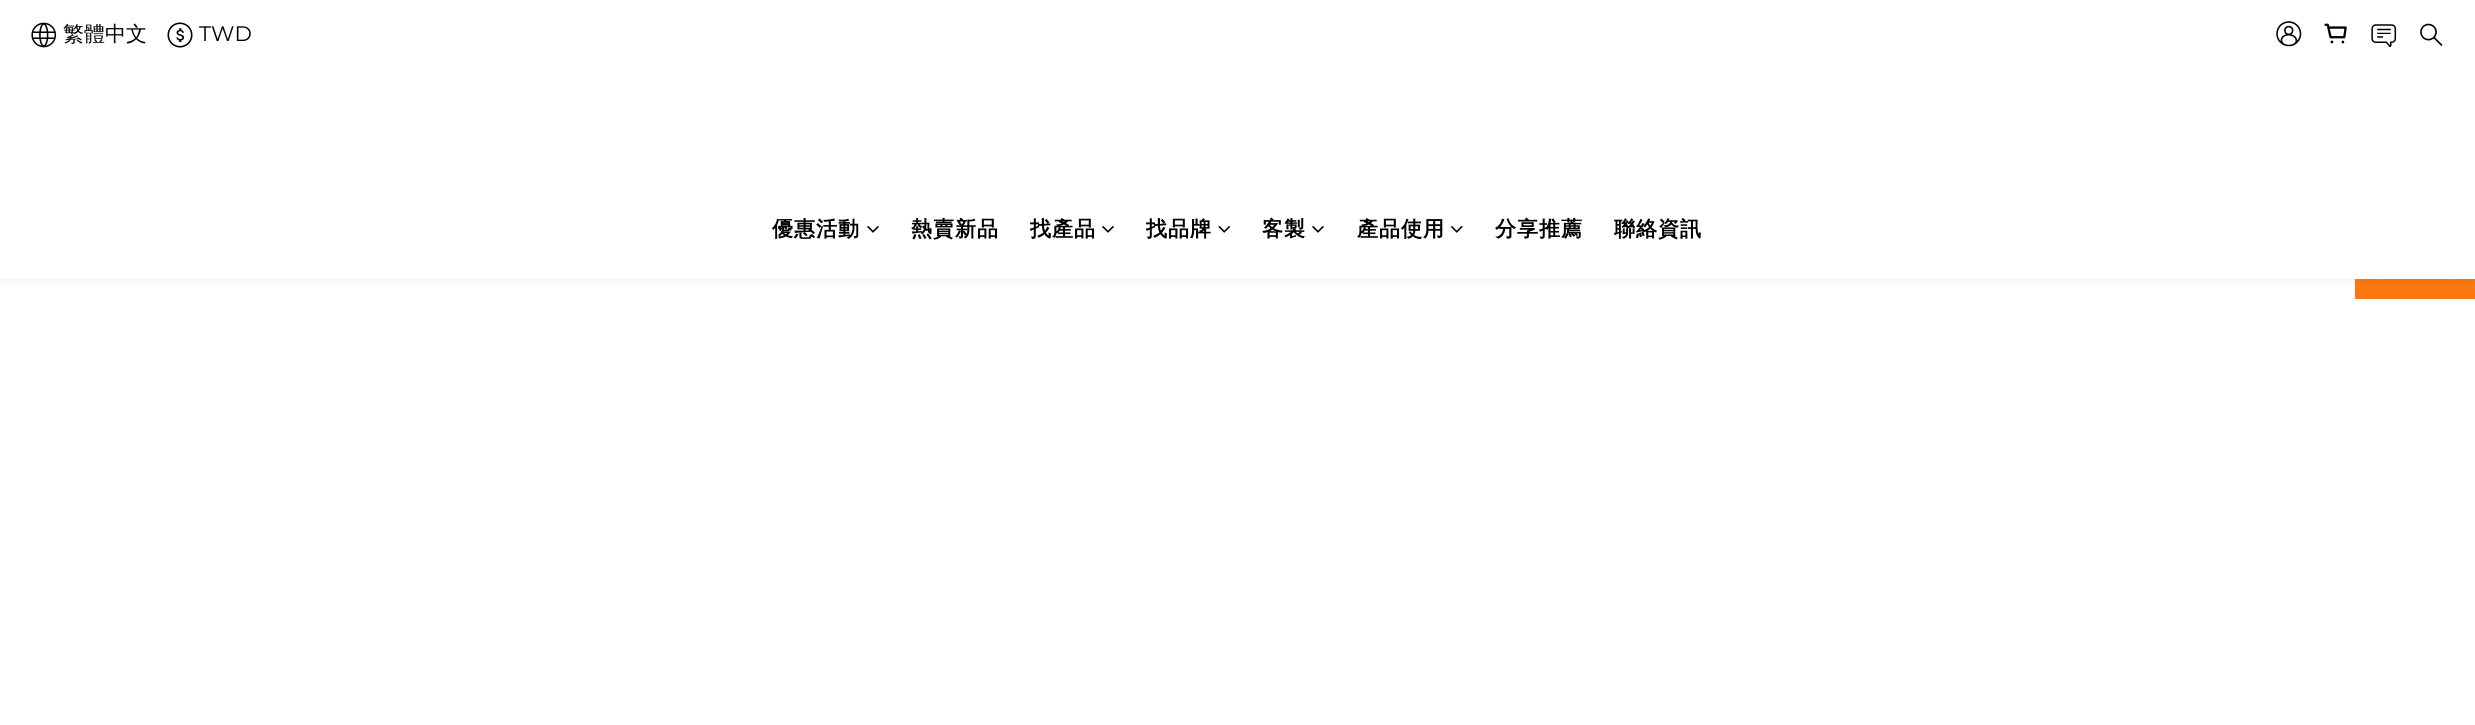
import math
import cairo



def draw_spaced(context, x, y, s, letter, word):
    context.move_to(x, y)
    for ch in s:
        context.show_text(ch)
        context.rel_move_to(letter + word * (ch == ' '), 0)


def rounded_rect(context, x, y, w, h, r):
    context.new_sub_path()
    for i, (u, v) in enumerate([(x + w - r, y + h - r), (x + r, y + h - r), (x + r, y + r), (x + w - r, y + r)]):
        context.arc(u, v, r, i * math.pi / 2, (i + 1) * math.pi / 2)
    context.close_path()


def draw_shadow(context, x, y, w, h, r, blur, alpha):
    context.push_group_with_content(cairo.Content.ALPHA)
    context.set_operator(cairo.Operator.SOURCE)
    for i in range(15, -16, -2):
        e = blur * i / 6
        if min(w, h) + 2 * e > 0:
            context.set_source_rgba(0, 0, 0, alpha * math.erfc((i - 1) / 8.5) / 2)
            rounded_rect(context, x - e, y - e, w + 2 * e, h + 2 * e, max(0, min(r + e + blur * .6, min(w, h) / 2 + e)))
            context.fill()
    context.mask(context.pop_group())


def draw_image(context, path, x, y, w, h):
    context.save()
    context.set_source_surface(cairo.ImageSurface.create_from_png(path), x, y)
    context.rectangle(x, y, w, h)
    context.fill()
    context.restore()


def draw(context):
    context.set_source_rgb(1, 1, 1)
    context.paint()
    context.set_source_rgb(251 / 255, 120 / 255, 19 / 255)
    context.rectangle(2355, 279, 120, 20)
    context.fill()
    context.set_source_rgb(1, 1, 1)
    context.new_path()
    context.move_to(2367, 269)
    context.line_to(2368, 268)
    context.line_to(2378.5, 278.5)
    context.line_to(2377.5, 279.5)
    context.close_path()
    context.fill()
    context.new_path()
    context.move_to(2463, 269)
    context.line_to(2452.5, 279.5)
    context.line_to(2451.5, 278.5)
    context.line_to(2462, 268)
    context.close_path()
    context.fill()
    context.set_source_rgb(0, 0, 0)
    draw_shadow(context, 0, 3, 2475, 278, 0, 4, 0.06)
    context.set_source_rgb(1, 1, 1)
    context.rectangle(0, 0, 2475, 279)
    context.fill()
    draw_image(context, "images/1.png", 31, 22, 26, 26)
    draw_image(context, "images/2.png", 167, 22, 26, 26)
    draw_image(context, "images/3.png", 2276, 21, 26, 26)
    draw_image(context, "images/4.png", 2324, 23, 23, 21)
    draw_image(context, "images/5.png", 2371, 24, 26, 23)
    draw_image(context, "images/6.png", 2420, 23, 23, 23)
    draw_image(context, "images/7.png", 867, 226, 12, 7)
    draw_image(context, "images/7.png", 1102, 226, 12, 7)
    draw_image(context, "images/8.png", 1218, 226, 12, 7)
    draw_image(context, "images/7.png", 1312, 226, 12, 7)
    draw_image(context, "images/9.png", 1451, 226, 12, 7)
    context.select_font_face("WenQuanYi Zen Hei Medium")
    context.set_font_size(21)
    context.set_source_rgb(0, 0, 0)
    context.move_to(63, 41)
    context.show_text("繁體中文")
    context.select_font_face("Montserrat")
    context.move_to(199, 41)
    context.show_text("TWD")
    context.select_font_face("WenQuanYi Zen Hei", cairo.FontSlant.NORMAL, cairo.FontWeight.BOLD)
    draw_spaced(context, 772, 236, "優惠活動", 1, 0)
    draw_spaced(context, 911, 236, "熱賣新品", 1, 0)
    draw_spaced(context, 1030, 236, "找產品", 1, 0)
    draw_spaced(context, 1146, 236, "找品牌", 1, 0)
    draw_spaced(context, 1262, 236, "客製", 1, 0)
    draw_spaced(context, 1357, 236, "產品使用", 1, 0)
    draw_spaced(context, 1495, 236, "分享推薦", 1, 0)
    draw_spaced(context, 1614, 236, "聯絡資訊", 1, 0)


surface = cairo.ImageSurface(cairo.Format.RGB24, 2475, 725)
context = cairo.Context(surface)
options = cairo.FontOptions()
options.set_hint_metrics(cairo.HintMetrics.OFF)
options.set_hint_style(cairo.HintStyle.NONE)
context.set_font_options(options)
context.set_miter_limit(4)
draw(context)
surface.write_to_png("out.png")
